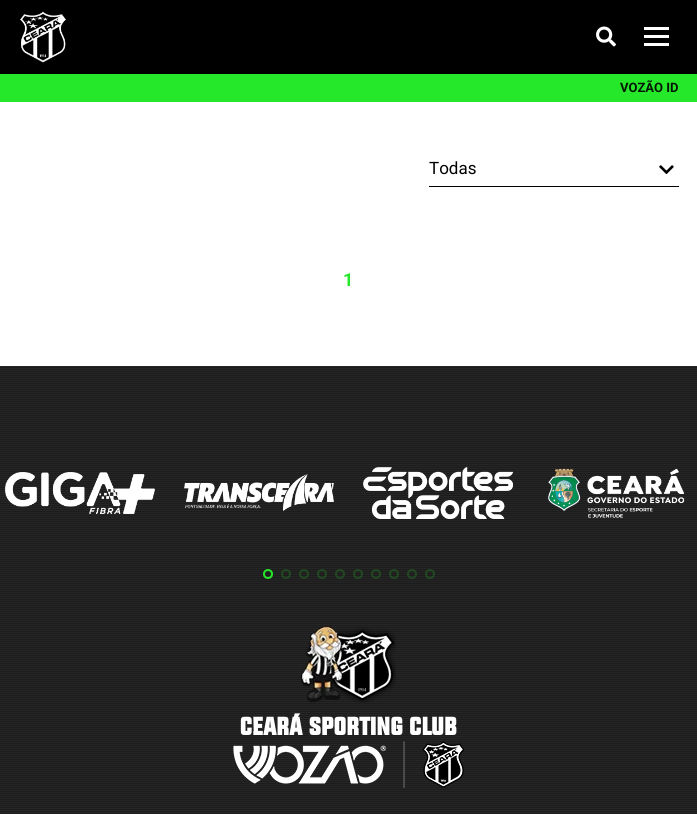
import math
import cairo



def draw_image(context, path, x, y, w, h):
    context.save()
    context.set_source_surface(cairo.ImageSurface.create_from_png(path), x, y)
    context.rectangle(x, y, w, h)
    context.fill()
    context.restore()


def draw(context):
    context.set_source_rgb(1, 1, 1)
    context.paint()
    context.set_source_rgb(37 / 255, 232 / 255, 42 / 255)
    context.rectangle(0, 74, 697, 28)
    context.fill()
    context.set_source_rgb(0, 0, 0)
    context.rectangle(0, 0, 697, 74)
    context.fill()
    draw_image(context, "images/1.png", 20, 11, 46, 52)
    draw_image(context, "images/2.png", 596, 26, 20, 21)
    context.set_source_rgb(1, 1, 1)
    context.rectangle(644, 35, 25, 3)
    context.fill()
    context.rectangle(644, 27, 25, 3)
    context.fill()
    context.rectangle(644, 43, 25, 3)
    context.fill()
    context.set_source_rgb(0, 0, 0)
    context.rectangle(429, 186, 250, 1)
    context.fill()
    draw_image(context, "images/3.png", 659, 165, 15, 9)
    draw_image(context, "images/4.png", 0, 366, 697, 448)
    draw_image(context, "images/5.png", 5, 472, 150, 42)
    draw_image(context, "images/6.png", 184, 474, 150, 37)
    draw_image(context, "images/7.png", 363, 467, 150, 52)
    draw_image(context, "images/8.png", 547, 468, 138, 50)
    context.arc(268, 574, 4, 0, 2 * math.pi)
    context.set_source_rgb(37 / 255, 232 / 255, 42 / 255)
    context.stroke()
    context.arc(286, 574, 4, 0, 2 * math.pi)
    context.set_source_rgba(37 / 255, 232 / 255, 42 / 255, 0.2)
    context.stroke()
    context.arc(304, 574, 4, 0, 2 * math.pi)
    context.stroke()
    context.arc(322, 574, 4, 0, 2 * math.pi)
    context.stroke()
    context.arc(340, 574, 4, 0, 2 * math.pi)
    context.stroke()
    context.arc(358, 574, 4, 0, 2 * math.pi)
    context.stroke()
    context.arc(376, 574, 4, 0, 2 * math.pi)
    context.stroke()
    context.arc(394, 574, 4, 0, 2 * math.pi)
    context.stroke()
    context.arc(412, 574, 4, 0, 2 * math.pi)
    context.stroke()
    context.arc(430, 574, 4, 0, 2 * math.pi)
    context.stroke()
    draw_image(context, "images/9.png", 301, 626, 95, 77)
    draw_image(context, "images/10.png", 233, 741, 231, 47)
    context.select_font_face("Roboto", cairo.FontSlant.NORMAL, cairo.FontWeight.BOLD)
    context.set_font_size(13)
    context.set_source_rgb(4 / 255, 23 / 255, 4 / 255)
    context.move_to(620, 92)
    context.show_text("VOZÃO ID")
    context.select_font_face("Roboto")
    context.set_font_size(17)
    context.set_source_rgb(0, 0, 0)
    context.move_to(429, 174)
    context.show_text("Todas")
    context.select_font_face("Roboto", cairo.FontSlant.NORMAL, cairo.FontWeight.BOLD)
    context.set_font_size(18)
    context.set_source_rgb(37 / 255, 232 / 255, 42 / 255)
    context.move_to(343, 286)
    context.show_text("1")
    context.select_font_face("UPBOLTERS", cairo.FontSlant.NORMAL, cairo.FontWeight.BOLD)
    context.set_font_size(25)
    context.set_source_rgb(1, 1, 1)
    context.move_to(240, 735)
    context.show_text("CEARÁ SPORTING CLUB")


surface = cairo.ImageSurface(cairo.Format.RGB24, 697, 814)
context = cairo.Context(surface)
options = cairo.FontOptions()
options.set_hint_metrics(cairo.HintMetrics.OFF)
options.set_hint_style(cairo.HintStyle.NONE)
context.set_font_options(options)
context.set_miter_limit(4)
draw(context)
surface.write_to_png("out.png")
